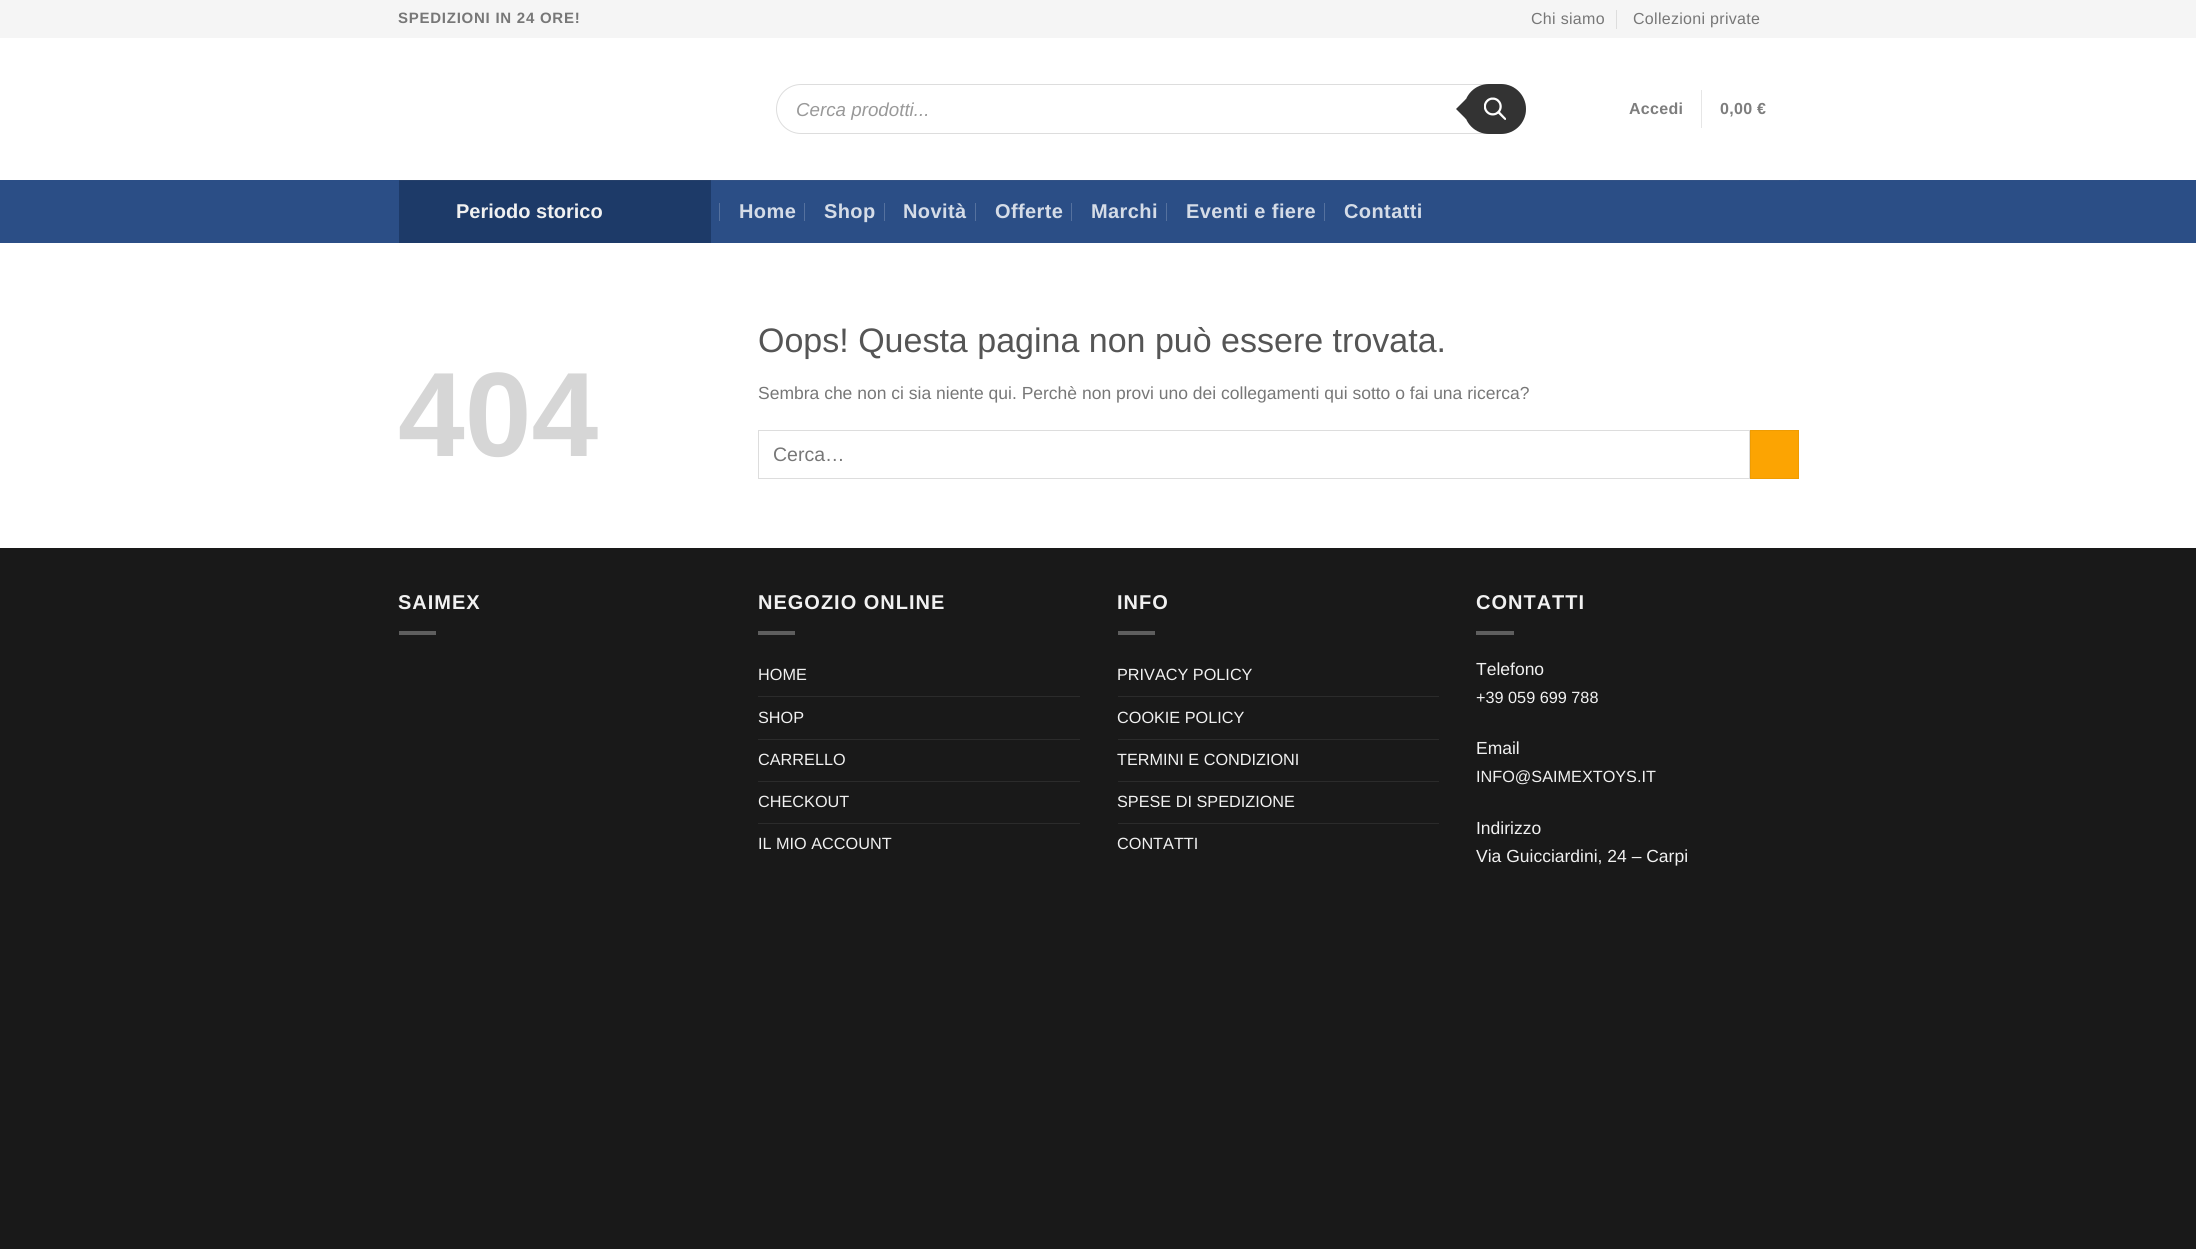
import math
import cairo



def draw_spaced(context, x, y, s, letter, word):
    context.move_to(x, y)
    for ch in s:
        context.show_text(ch)
        context.rel_move_to(letter + word * (ch == ' '), 0)


def rounded_rect(context, x, y, w, h, r):
    context.new_sub_path()
    for i, (u, v) in enumerate([(x + w - r, y + h - r), (x + r, y + h - r), (x + r, y + r), (x + w - r, y + r)]):
        context.arc(u, v, r, i * math.pi / 2, (i + 1) * math.pi / 2)
    context.close_path()


def draw_image(context, path, x, y, w, h):
    context.save()
    context.set_source_surface(cairo.ImageSurface.create_from_png(path), x, y)
    context.rectangle(x, y, w, h)
    context.fill()
    context.restore()


def draw(context):
    context.set_source_rgb(1, 1, 1)
    context.paint()
    context.set_source_rgb(245 / 255, 245 / 255, 245 / 255)
    context.rectangle(0, 0, 2196, 38)
    context.fill()
    context.set_source_rgb(221 / 255, 221 / 255, 221 / 255)
    context.rectangle(1616, 10, 1, 19)
    context.fill()
    rounded_rect(context, 776.5, 84.5, 749, 49, 24.5)
    context.set_line_width(1)
    context.stroke()
    context.set_source_rgb(51 / 255, 51 / 255, 51 / 255)
    rounded_rect(context, 1464, 84, 62, 50, 25)
    context.fill()
    context.new_path()
    context.move_to(1466, 99)
    context.line_to(1466, 119)
    context.line_to(1456, 109)
    context.close_path()
    context.fill()
    draw_image(context, "images/1.png", 1484, 97, 22, 23)
    context.set_source_rgb(230 / 255, 230 / 255, 230 / 255)
    context.rectangle(1701, 90, 1, 38)
    context.fill()
    context.set_source_rgb(43 / 255, 78 / 255, 134 / 255)
    context.rectangle(0, 180, 2196, 63)
    context.fill()
    context.set_source_rgb(51 / 255, 82 / 255, 133 / 255)
    context.rectangle(711, 180, 1088, 1)
    context.fill()
    context.set_source_rgb(29 / 255, 58 / 255, 104 / 255)
    context.rectangle(399, 181, 312, 62)
    context.fill()
    context.set_source_rgb(38 / 255, 64 / 255, 106 / 255)
    context.rectangle(399, 180, 312, 1)
    context.fill()
    context.set_source_rgb(85 / 255, 113 / 255, 158 / 255)
    context.rectangle(719, 203, 1, 18)
    context.fill()
    context.rectangle(804, 203, 1, 18)
    context.fill()
    context.rectangle(884, 203, 1, 18)
    context.fill()
    context.rectangle(975, 203, 1, 18)
    context.fill()
    context.rectangle(1071, 203, 1, 18)
    context.fill()
    context.rectangle(1166, 203, 1, 18)
    context.fill()
    context.rectangle(1324, 203, 1, 18)
    context.fill()
    context.rectangle(758.5, 430.5, 991, 48)
    context.set_source_rgb(221 / 255, 221 / 255, 221 / 255)
    context.stroke()
    context.set_source_rgb(252 / 255, 164 / 255, 2 / 255)
    context.rectangle(1750.5, 430.5, 48, 48)
    context.fill_preserve()
    context.set_source_rgb(239 / 255, 156 / 255, 2 / 255)
    context.stroke()
    context.set_source_rgb(25 / 255, 25 / 255, 25 / 255)
    context.rectangle(0, 548, 2196, 701)
    context.fill()
    context.set_source_rgb(94 / 255, 94 / 255, 94 / 255)
    context.rectangle(399, 631, 37, 4)
    context.fill()
    context.rectangle(758, 631, 37, 4)
    context.fill()
    context.set_source_rgb(43 / 255, 43 / 255, 43 / 255)
    context.rectangle(758, 696, 322, 1)
    context.fill()
    context.rectangle(758, 739, 322, 1)
    context.fill()
    context.rectangle(758, 781, 322, 1)
    context.fill()
    context.rectangle(758, 823, 322, 1)
    context.fill()
    context.set_source_rgb(94 / 255, 94 / 255, 94 / 255)
    context.rectangle(1118, 631, 37, 4)
    context.fill()
    context.set_source_rgb(43 / 255, 43 / 255, 43 / 255)
    context.rectangle(1118, 696, 321, 1)
    context.fill()
    context.rectangle(1118, 739, 321, 1)
    context.fill()
    context.rectangle(1118, 781, 321, 1)
    context.fill()
    context.rectangle(1118, 823, 321, 1)
    context.fill()
    context.set_source_rgb(94 / 255, 94 / 255, 94 / 255)
    context.rectangle(1476, 631, 38, 4)
    context.fill()
    context.select_font_face("Liberation Sans", cairo.FontSlant.NORMAL, cairo.FontWeight.BOLD)
    context.set_font_size(15)
    context.set_source_rgb(119 / 255, 119 / 255, 119 / 255)
    draw_spaced(context, 398, 23, "SPEDIZIONI IN 24 ORE!", 0.75, 0)
    context.select_font_face("Liberation Sans")
    context.set_font_size(16)
    draw_spaced(context, 1531, 24, "Chi siamo", 0.3, 0)
    draw_spaced(context, 1633, 24, "Collezioni private", 0.3, 0)
    context.select_font_face("Liberation Sans", cairo.FontSlant.ITALIC)
    context.set_font_size(18.75)
    context.set_source_rgb(153 / 255, 153 / 255, 153 / 255)
    context.move_to(796, 116)
    context.show_text("Cerca prodotti...")
    context.select_font_face("Liberation Sans", cairo.FontSlant.NORMAL, cairo.FontWeight.BOLD)
    context.set_font_size(16)
    context.set_source_rgb(125 / 255, 125 / 255, 125 / 255)
    draw_spaced(context, 1629, 114, "Accedi", 0.3, 0)
    draw_spaced(context, 1720, 114, "0,00 €", 0.3, 0)
    context.set_font_size(20)
    context.set_source_rgb(241 / 255, 241 / 255, 241 / 255)
    context.move_to(456, 218)
    context.show_text("Periodo storico")
    context.set_source_rgb(213 / 255, 220 / 255, 231 / 255)
    draw_spaced(context, 739, 218, "Home", 0.4, 0)
    draw_spaced(context, 824, 218, "Shop", 0.4, 0)
    draw_spaced(context, 903, 218, "Novità", 0.4, 0)
    draw_spaced(context, 995, 218, "Offerte", 0.4, 0)
    draw_spaced(context, 1091, 218, "Marchi", 0.4, 0)
    draw_spaced(context, 1186, 218, "Eventi e fiere", 0.4, 0)
    draw_spaced(context, 1344, 218, "Contatti", 0.4, 0)
    context.set_font_size(120)
    context.set_source_rgb(214 / 255, 214 / 255, 214 / 255)
    context.move_to(398, 456)
    context.show_text("404")
    context.select_font_face("Liberation Sans")
    context.set_font_size(34)
    context.set_source_rgb(85 / 255, 85 / 255, 85 / 255)
    context.move_to(758, 352)
    context.show_text("Oops! Questa pagina non può essere trovata.")
    context.set_font_size(17.5)
    context.set_source_rgb(119 / 255, 119 / 255, 119 / 255)
    context.move_to(758, 399)
    context.show_text("Sembra che non ci sia niente qui. Perchè non provi uno dei collegamenti qui sotto o fai una ricerca?")
    context.set_font_size(19.5)
    context.move_to(773, 461)
    context.show_text("Cerca…")
    context.select_font_face("Liberation Sans", cairo.FontSlant.NORMAL, cairo.FontWeight.BOLD)
    context.set_font_size(20)
    context.set_source_rgb(241 / 255, 241 / 255, 241 / 255)
    draw_spaced(context, 398, 609, "SAIMEX", 1, 0)
    draw_spaced(context, 758, 609, "NEGOZIO ONLINE", 1, 0)
    context.select_font_face("Liberation Sans")
    context.set_font_size(16.25)
    context.move_to(758, 680)
    context.show_text("HOME")
    context.move_to(758, 723)
    context.show_text("SHOP")
    context.move_to(758, 765)
    context.show_text("CARRELLO")
    context.move_to(758, 807)
    context.show_text("CHECKOUT")
    context.move_to(758, 849)
    context.show_text("IL MIO ACCOUNT")
    context.select_font_face("Liberation Sans", cairo.FontSlant.NORMAL, cairo.FontWeight.BOLD)
    context.set_font_size(20)
    draw_spaced(context, 1117, 609, "INFO", 1, 0)
    context.select_font_face("Liberation Sans")
    context.set_font_size(16.25)
    context.move_to(1117, 680)
    context.show_text("PRIVACY POLICY")
    context.move_to(1117, 723)
    context.show_text("COOKIE POLICY")
    context.move_to(1117, 765)
    context.show_text("TERMINI E CONDIZIONI")
    context.move_to(1117, 807)
    context.show_text("SPESE DI SPEDIZIONE")
    context.move_to(1117, 849)
    context.show_text("CONTATTI")
    context.select_font_face("Liberation Sans", cairo.FontSlant.NORMAL, cairo.FontWeight.BOLD)
    context.set_font_size(20)
    draw_spaced(context, 1476, 609, "CONTATTI", 1, 0)
    context.select_font_face("Liberation Sans")
    context.set_font_size(17.5)
    context.move_to(1476, 675)
    context.show_text("Telefono")
    context.set_font_size(16.25)
    context.move_to(1476, 703)
    context.show_text("+39 059 699 788")
    context.set_font_size(17.5)
    context.move_to(1476, 754)
    context.show_text("Email")
    context.set_font_size(16.25)
    context.move_to(1476, 782)
    context.show_text("INFO@SAIMEXTOYS.IT")
    context.set_font_size(17.5)
    context.move_to(1476, 834)
    context.show_text("Indirizzo")
    context.move_to(1476, 862)
    context.show_text("Via Guicciardini, 24 – Carpi")


surface = cairo.ImageSurface(cairo.Format.RGB24, 2196, 1249)
context = cairo.Context(surface)
options = cairo.FontOptions()
options.set_hint_metrics(cairo.HintMetrics.OFF)
options.set_hint_style(cairo.HintStyle.NONE)
context.set_font_options(options)
context.set_miter_limit(4)
draw(context)
surface.write_to_png("out.png")
